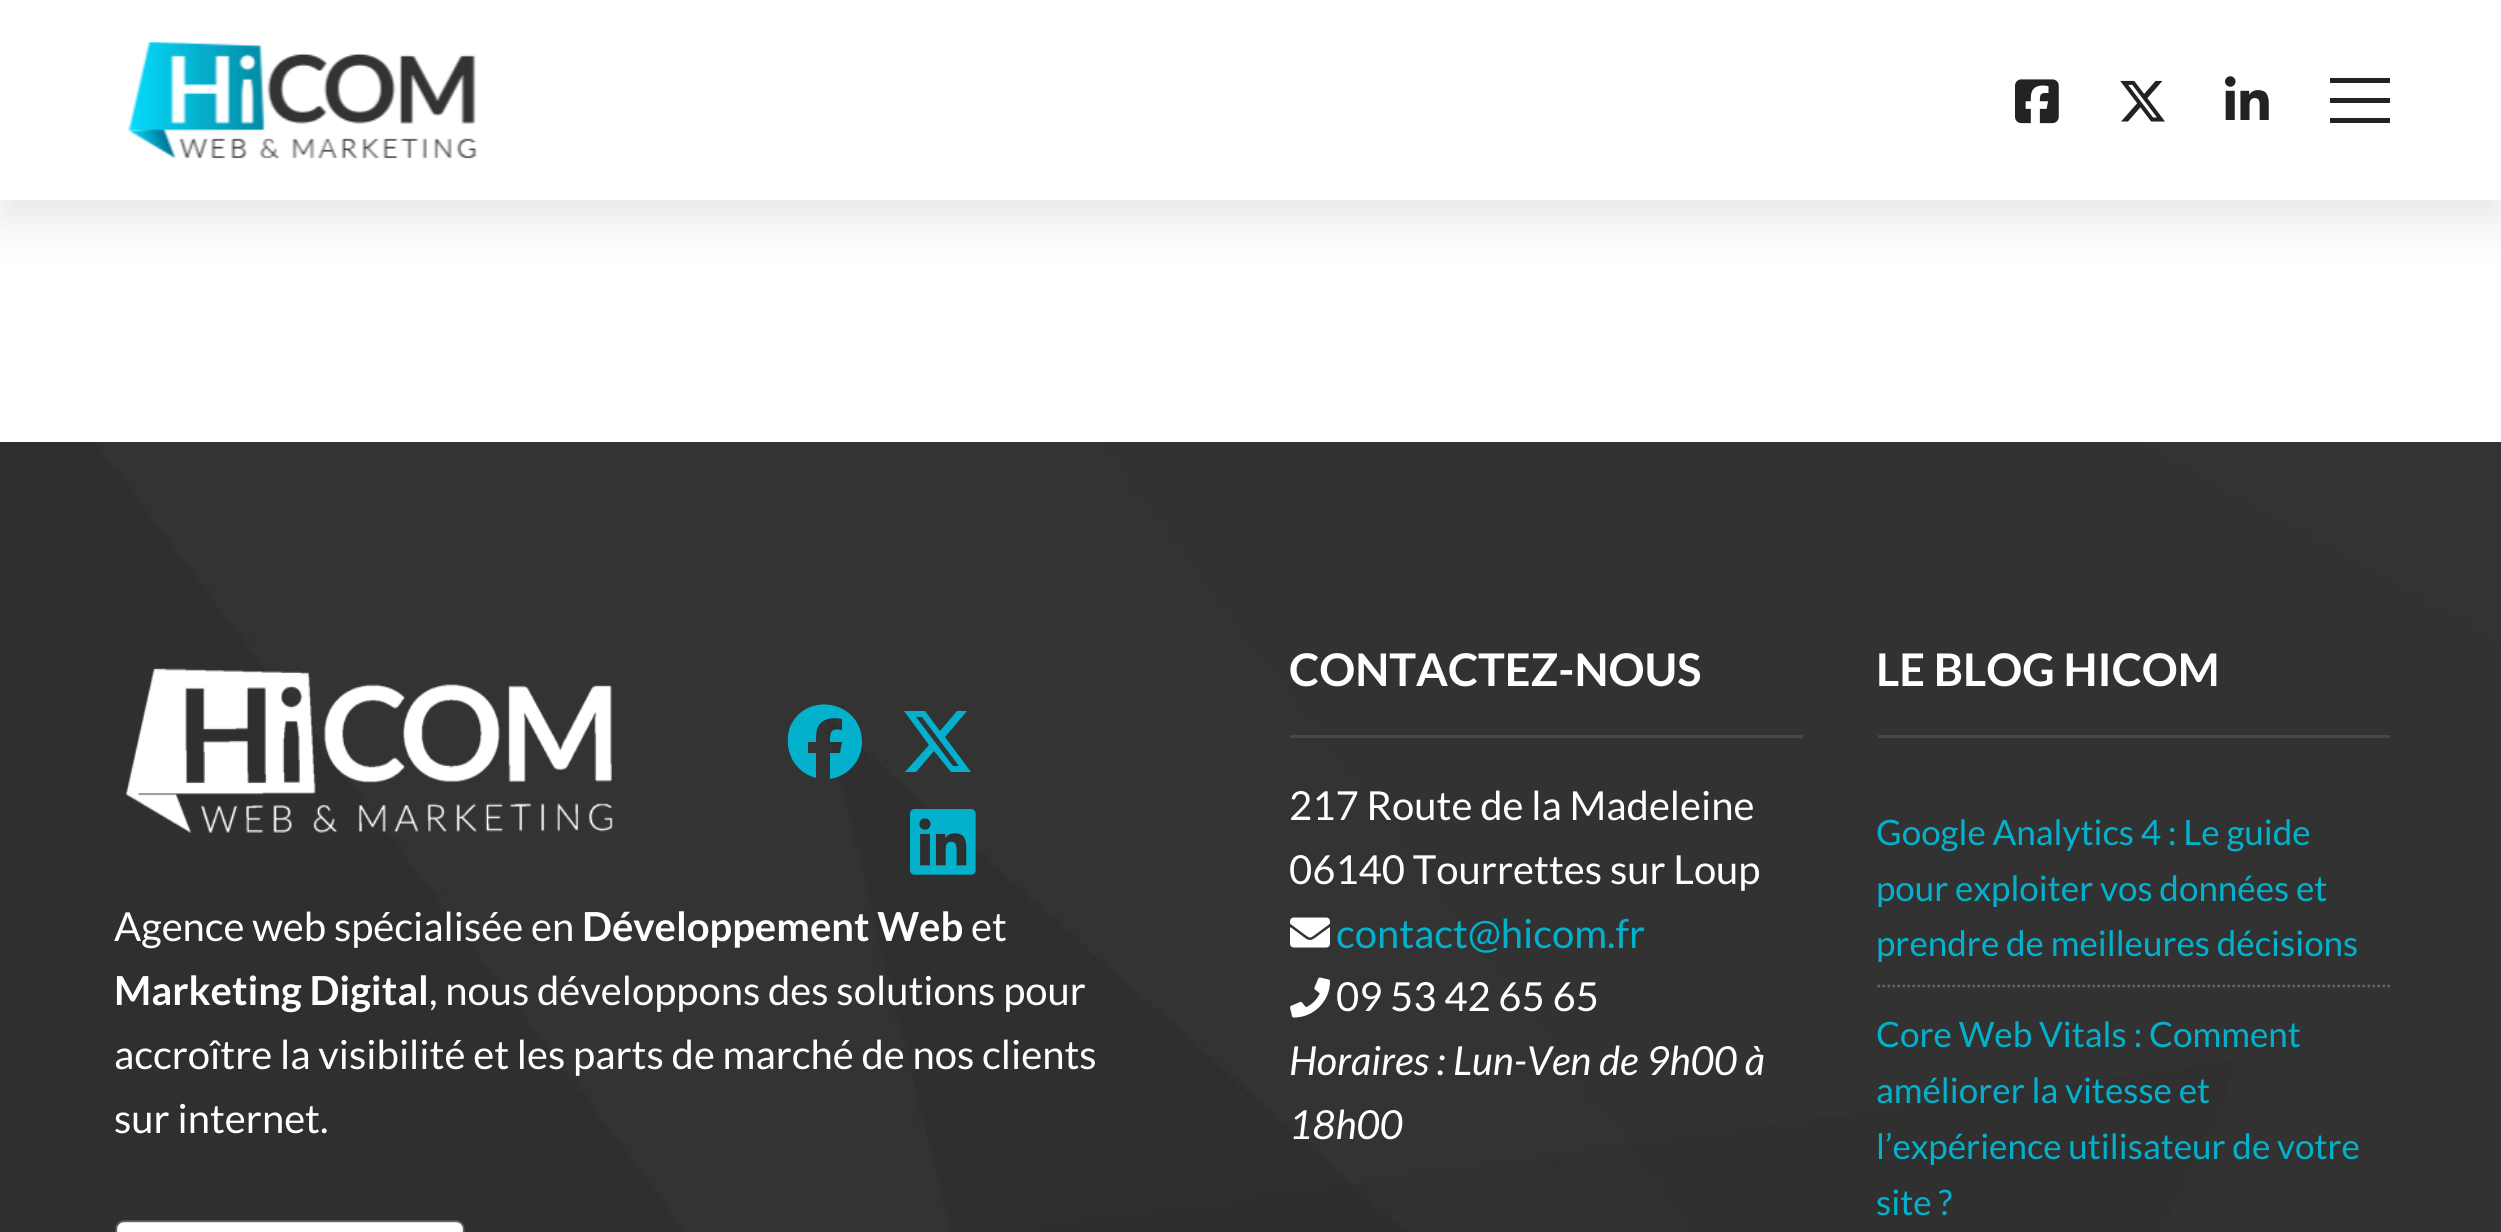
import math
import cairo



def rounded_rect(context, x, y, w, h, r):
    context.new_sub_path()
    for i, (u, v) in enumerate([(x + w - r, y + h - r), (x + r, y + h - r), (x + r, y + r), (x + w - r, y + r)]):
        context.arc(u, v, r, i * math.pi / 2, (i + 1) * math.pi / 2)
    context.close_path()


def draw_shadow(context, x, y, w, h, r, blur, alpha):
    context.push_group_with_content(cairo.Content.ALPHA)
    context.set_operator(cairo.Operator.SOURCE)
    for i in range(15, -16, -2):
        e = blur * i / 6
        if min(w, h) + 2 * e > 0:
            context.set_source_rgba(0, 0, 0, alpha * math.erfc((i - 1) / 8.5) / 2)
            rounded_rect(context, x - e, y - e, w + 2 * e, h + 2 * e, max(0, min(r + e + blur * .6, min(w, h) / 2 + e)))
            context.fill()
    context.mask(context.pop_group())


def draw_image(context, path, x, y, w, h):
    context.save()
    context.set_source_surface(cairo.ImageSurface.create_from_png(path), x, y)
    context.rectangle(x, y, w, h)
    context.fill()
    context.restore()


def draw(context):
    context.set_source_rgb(1, 1, 1)
    context.paint()
    context.set_source_rgb(0, 0, 0)
    draw_shadow(context, 0, 20, 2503, 200, 0, 25, 0.1)
    context.set_source_rgb(1, 1, 1)
    context.rectangle(0, 0, 2501, 200)
    context.fill()
    draw_image(context, "images/1.png", 128, 42, 349, 117)
    draw_image(context, "images/2.png", 2015, 79, 44, 45)
    draw_image(context, "images/3.png", 2120, 80, 45, 42)
    draw_image(context, "images/4.png", 2225, 76, 44, 44)
    context.set_source_rgb(34 / 255, 34 / 255, 34 / 255)
    context.rectangle(2330, 98, 60, 5)
    context.fill()
    context.rectangle(2330, 78, 60, 5)
    context.fill()
    context.rectangle(2330, 118, 60, 5)
    context.fill()
    draw_image(context, "images/5.png", 0, 442, 2501, 790)
    draw_image(context, "images/6.png", 125, 668, 488, 165)
    context.set_source_rgb(4 / 255, 177 / 255, 205 / 255)
    context.new_path()
    context.move_to(862, 742)
    context.curve_to(862, 701, 806, 690, 790, 727)
    context.curve_to(787, 736, 787, 746, 790, 754)
    context.curve_to(794, 766, 804, 775, 816, 778)
    context.line_to(816, 753)
    context.line_to(808, 753)
    context.line_to(808, 742)
    context.line_to(816, 742)
    context.curve_to(816, 737, 816, 733, 817, 729)
    context.curve_to(821, 718, 833, 717, 842, 719)
    context.line_to(842, 730)
    context.curve_to(831, 728, 830, 731, 830, 742)
    context.line_to(842, 742)
    context.line_to(840, 753)
    context.line_to(830, 753)
    context.line_to(830, 779)
    context.curve_to(848, 776, 862, 761, 862, 742)
    context.close_path()
    context.fill()
    context.new_path()
    context.move_to(957, 711)
    context.line_to(967, 711)
    context.line_to(957, 711)
    context.line_to(967, 711)
    context.line_to(945, 737)
    context.line_to(971, 772)
    context.line_to(951, 772)
    context.line_to(934, 751)
    context.line_to(916, 772)
    context.line_to(905, 772)
    context.line_to(929, 745)
    context.line_to(904, 711)
    context.line_to(925, 711)
    context.line_to(940, 731)
    context.close_path()
    context.move_to(953, 766)
    context.line_to(959, 766)
    context.line_to(953, 766)
    context.line_to(959, 766)
    context.line_to(922, 717)
    context.line_to(916, 717)
    context.close_path()
    context.fill()
    draw_image(context, "images/7.png", 910, 809, 66, 66)
    draw_image(context, "images/8.png", 115, 1220, 350, 12)
    context.set_source_rgb(72 / 255, 72 / 255, 72 / 255)
    context.rectangle(1290, 735, 513, 3)
    context.fill()
    draw_image(context, "images/9.png", 1290, 917, 40, 31)
    draw_image(context, "images/10.png", 1290, 977, 40, 41)
    context.rectangle(1878, 735, 512, 3)
    context.fill()
    context.new_path()
    context.move_to(1877.5, 986)
    context.line_to(2390, 986)
    context.set_source_rgb(102 / 255, 102 / 255, 102 / 255)
    context.set_line_width(2.5)
    context.set_dash([2.5, 2.5])
    context.stroke()
    context.select_font_face("Lato")
    context.set_font_size(40)
    context.set_source_rgb(1, 1, 1)
    context.move_to(114, 941)
    context.show_text("Agence web spécialisée en")
    context.select_font_face("Lato", cairo.FontSlant.NORMAL, cairo.FontWeight.BOLD)
    context.move_to(582, 941)
    context.show_text("Développement Web")
    context.select_font_face("Lato")
    context.move_to(971, 941)
    context.show_text("et")
    context.select_font_face("Lato", cairo.FontSlant.NORMAL, cairo.FontWeight.BOLD)
    context.move_to(114, 1005)
    context.show_text("Marketing Digital")
    context.select_font_face("Lato")
    context.move_to(429, 1005)
    context.show_text(", nous développons des solutions pour")
    context.move_to(114, 1069)
    context.show_text("accroître la visibilité et les parts de marché de nos clients")
    context.move_to(114, 1133)
    context.show_text("sur internet.")
    context.select_font_face("Lato", cairo.FontSlant.NORMAL, cairo.FontWeight.BOLD)
    context.set_font_size(45)
    context.move_to(1289, 686)
    context.show_text("CONTACTEZ-NOUS")
    context.select_font_face("Lato")
    context.set_font_size(40)
    context.move_to(1289, 820)
    context.show_text("217 Route de la Madeleine")
    context.move_to(1289, 884)
    context.show_text("06140 Tourrettes sur Loup")
    context.set_source_rgb(4 / 255, 177 / 255, 205 / 255)
    context.move_to(1336, 948)
    context.show_text("contact@hicom.fr")
    context.set_source_rgb(1, 1, 1)
    context.move_to(1336, 1011)
    context.show_text("09 53 42 65 65")
    context.select_font_face("Lato", cairo.FontSlant.ITALIC)
    context.move_to(1289, 1075)
    context.show_text("Horaires : Lun-Ven de 9h00 à")
    context.move_to(1289, 1139)
    context.show_text("18h00")
    context.select_font_face("Lato", cairo.FontSlant.NORMAL, cairo.FontWeight.BOLD)
    context.set_font_size(45)
    context.move_to(1876, 686)
    context.show_text("LE BLOG HICOM")
    context.select_font_face("Lato")
    context.set_font_size(35)
    context.set_source_rgb(4 / 255, 177 / 255, 205 / 255)
    context.move_to(1876, 845)
    context.show_text("Google Analytics 4 : Le guide")
    context.move_to(1876, 901)
    context.show_text("pour exploiter vos données et")
    context.move_to(1876, 956)
    context.show_text("prendre de meilleures décisions")
    context.move_to(1876, 1047)
    context.show_text("Core Web Vitals : Comment")
    context.move_to(1876, 1103)
    context.show_text("améliorer la vitesse et")
    context.move_to(1876, 1159)
    context.show_text("l’expérience utilisateur de votre")
    context.move_to(1876, 1215)
    context.show_text("site ?")


surface = cairo.ImageSurface(cairo.Format.RGB24, 2501, 1232)
context = cairo.Context(surface)
options = cairo.FontOptions()
options.set_hint_metrics(cairo.HintMetrics.OFF)
options.set_hint_style(cairo.HintStyle.NONE)
context.set_font_options(options)
context.set_miter_limit(4)
draw(context)
surface.write_to_png("out.png")
